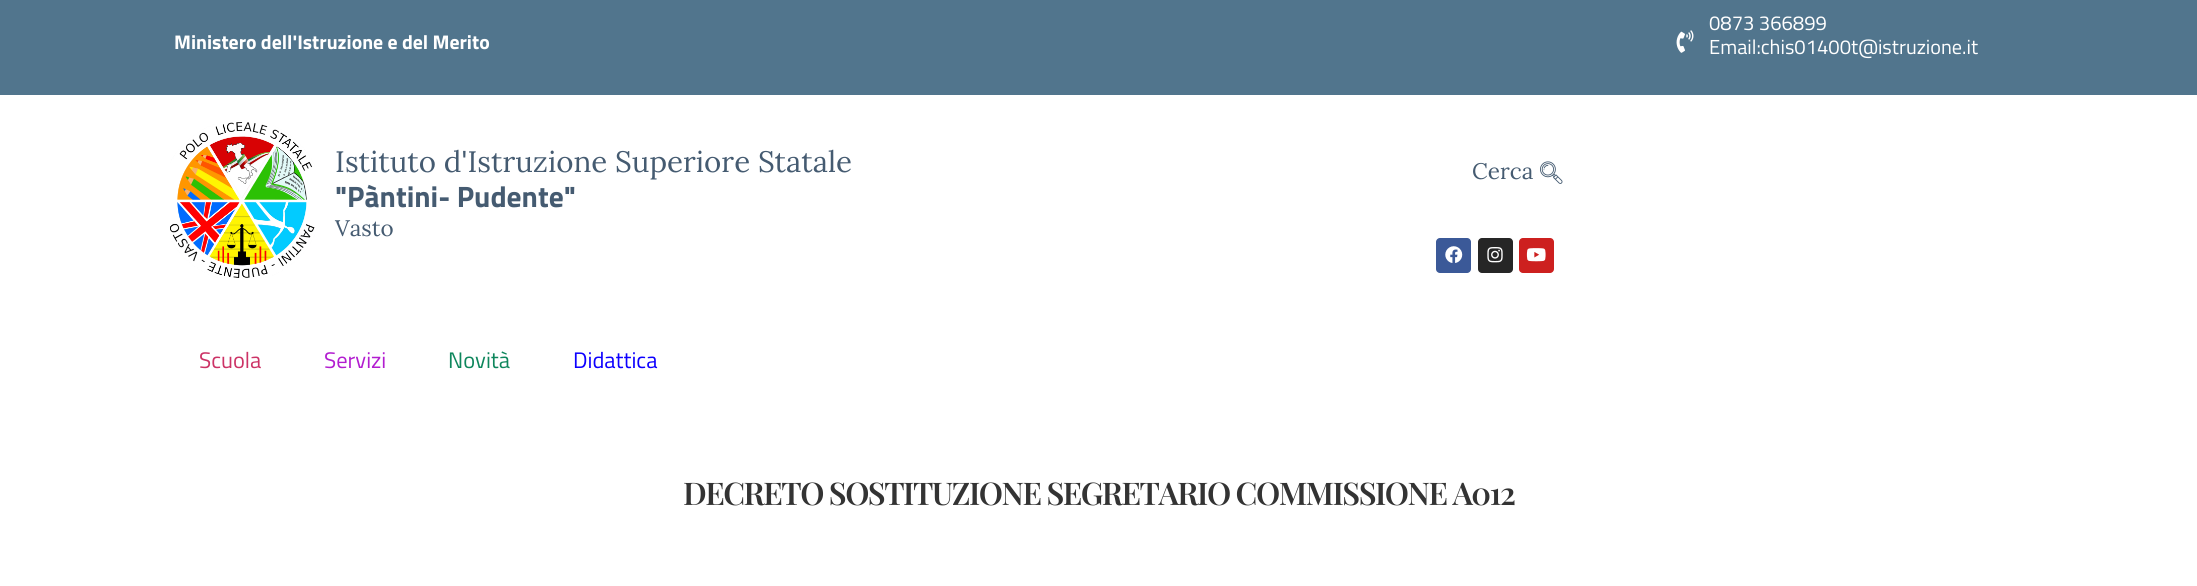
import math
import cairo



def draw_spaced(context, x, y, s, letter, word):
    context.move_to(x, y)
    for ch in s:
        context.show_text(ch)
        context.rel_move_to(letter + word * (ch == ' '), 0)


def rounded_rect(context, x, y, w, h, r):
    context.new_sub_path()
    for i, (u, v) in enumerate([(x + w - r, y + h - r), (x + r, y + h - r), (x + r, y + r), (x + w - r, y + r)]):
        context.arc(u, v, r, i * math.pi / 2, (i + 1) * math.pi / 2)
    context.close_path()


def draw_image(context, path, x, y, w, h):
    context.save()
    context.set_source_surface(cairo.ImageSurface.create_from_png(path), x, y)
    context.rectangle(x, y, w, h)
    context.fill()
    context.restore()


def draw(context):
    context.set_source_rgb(1, 1, 1)
    context.paint()
    context.set_source_rgb(81 / 255, 117 / 255, 141 / 255)
    context.rectangle(0, 0, 2197, 95)
    context.fill()
    draw_image(context, "images/1.png", 1676, 30, 18, 23)
    draw_image(context, "images/2.png", 170, 122, 145, 156)
    draw_image(context, "images/3.png", 1540, 161, 23, 23)
    context.set_source_rgb(59 / 255, 89 / 255, 152 / 255)
    rounded_rect(context, 1436, 238, 35, 35, 4)
    context.fill()
    draw_image(context, "images/4.png", 1445, 246, 18, 17)
    context.set_source_rgb(38 / 255, 38 / 255, 38 / 255)
    rounded_rect(context, 1478, 238, 35, 35, 4)
    context.fill()
    draw_image(context, "images/5.png", 1487, 247, 16, 16)
    context.set_source_rgb(205 / 255, 32 / 255, 31 / 255)
    rounded_rect(context, 1519, 238, 35, 35, 4)
    context.fill()
    draw_image(context, "images/6.png", 1526, 248, 20, 14)
    context.select_font_face("Titillium Web", cairo.FontSlant.NORMAL, cairo.FontWeight.BOLD)
    context.set_font_size(19.75)
    context.set_source_rgb(1, 1, 1)
    context.move_to(174, 49)
    context.show_text("Ministero dell'Istruzione e del Merito")
    context.select_font_face("Titillium Web")
    context.set_font_size(20.25)
    context.move_to(1709, 30)
    context.show_text("0873 366899")
    context.move_to(1709, 54)
    context.show_text("Email:chis01400t@istruzione.it")
    context.select_font_face("Lora")
    context.set_font_size(29.5)
    context.set_source_rgb(69 / 255, 91 / 255, 113 / 255)
    context.move_to(335, 172)
    context.show_text("Istituto d'Istruzione Superiore Statale")
    context.select_font_face("Titillium Web", cairo.FontSlant.NORMAL, cairo.FontWeight.BOLD)
    context.move_to(335, 207)
    context.show_text("\"Pàntini- Pudente\"")
    context.select_font_face("Lora")
    context.set_font_size(22.5)
    context.move_to(335, 236)
    context.show_text("Vasto")
    context.move_to(1472, 179)
    context.show_text("Cerca")
    context.select_font_face("Titillium Web")
    context.set_source_rgb(204 / 255, 51 / 255, 102 / 255)
    context.move_to(199, 368)
    context.show_text("Scuola")
    context.set_source_rgb(178 / 255, 29 / 255, 208 / 255)
    context.move_to(324, 368)
    context.show_text("Servizi")
    context.set_source_rgb(14 / 255, 134 / 255, 92 / 255)
    context.move_to(448, 368)
    context.show_text("Novità")
    context.set_source_rgb(13 / 255, 0, 1)
    context.move_to(573, 368)
    context.show_text("Didattica")
    context.select_font_face("Playfair Display SemiBold")
    context.set_font_size(31.25)
    context.set_source_rgb(51 / 255, 51 / 255, 51 / 255)
    draw_spaced(context, 683, 505, "DECRETO SOSTITUZIONE SEGRETARIO COMMISSIONE A012", -1.5, 0)


surface = cairo.ImageSurface(cairo.Format.RGB24, 2197, 586)
context = cairo.Context(surface)
options = cairo.FontOptions()
options.set_hint_metrics(cairo.HintMetrics.OFF)
options.set_hint_style(cairo.HintStyle.NONE)
context.set_font_options(options)
context.set_miter_limit(4)
draw(context)
surface.write_to_png("out.png")
